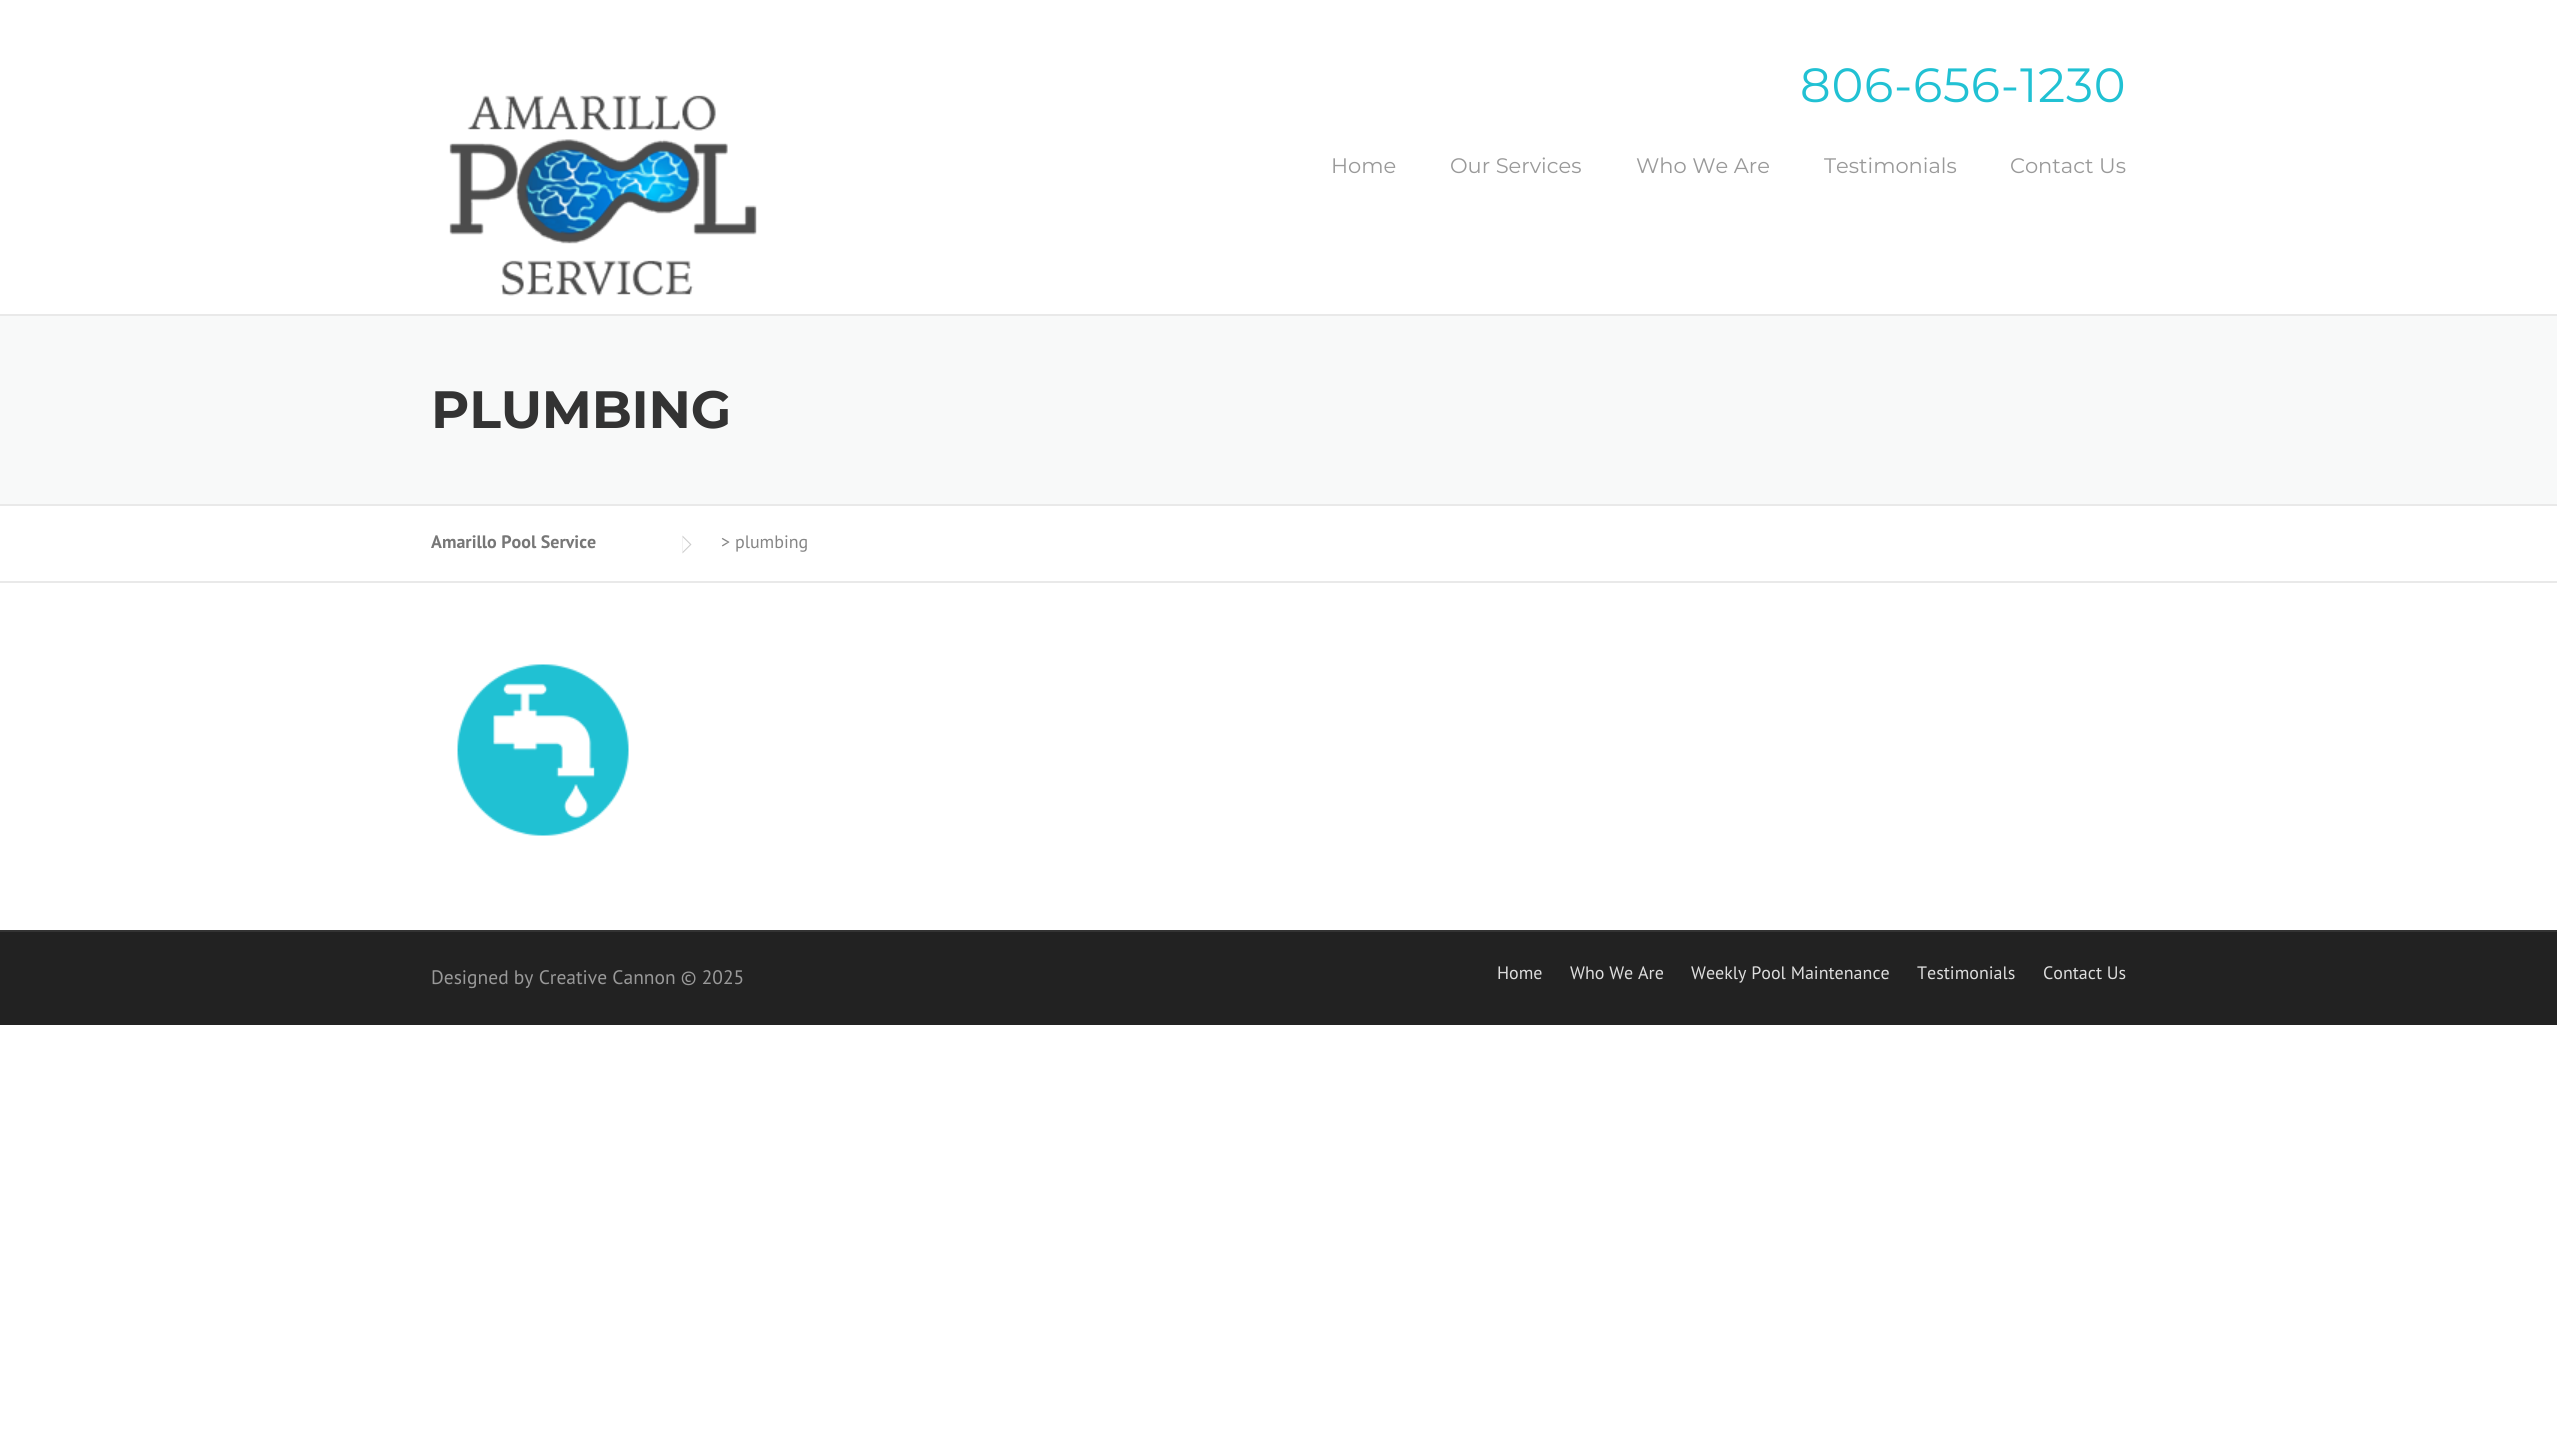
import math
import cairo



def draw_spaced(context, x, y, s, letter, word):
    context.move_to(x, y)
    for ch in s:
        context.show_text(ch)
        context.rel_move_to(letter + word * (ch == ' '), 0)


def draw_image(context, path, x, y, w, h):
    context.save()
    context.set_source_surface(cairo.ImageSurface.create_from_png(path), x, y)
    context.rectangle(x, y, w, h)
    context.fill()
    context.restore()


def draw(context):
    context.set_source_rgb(1, 1, 1)
    context.paint()
    draw_image(context, "images/1.png", 449, 95, 308, 201)
    context.set_source_rgb(248 / 255, 249 / 255, 249 / 255)
    context.rectangle(0, 316, 2557, 188)
    context.fill()
    context.set_source_rgb(233 / 255, 233 / 255, 233 / 255)
    context.rectangle(0, 314, 2557, 2)
    context.fill()
    context.rectangle(0, 504, 2557, 2)
    context.fill()
    context.rectangle(0, 581, 2557, 2)
    context.fill()
    context.set_source_rgb(204 / 255, 204 / 255, 204 / 255)
    context.new_path()
    context.move_to(682.5, 553.5)
    context.line_to(682.5, 535.5)
    context.line_to(691.5, 544.5)
    context.close_path()
    context.fill()
    context.set_source_rgb(1, 1, 1)
    context.new_path()
    context.move_to(682.5, 552)
    context.line_to(682.5, 537)
    context.line_to(690, 544.5)
    context.close_path()
    context.fill()
    draw_image(context, "images/2.png", 457, 664, 172, 172)
    context.set_source_rgb(34 / 255, 34 / 255, 34 / 255)
    context.rectangle(0, 932, 2557, 93)
    context.fill()
    context.set_source_rgb(51 / 255, 51 / 255, 51 / 255)
    context.rectangle(0, 930, 2557, 2)
    context.fill()
    context.select_font_face("Montserrat")
    context.set_font_size(48)
    context.set_source_rgb(33 / 255, 193 / 255, 211 / 255)
    draw_spaced(context, 1800, 102, "806-656-1230", 0.75, 0)
    context.set_font_size(21)
    context.set_source_rgb(153 / 255, 153 / 255, 153 / 255)
    context.move_to(1331, 173)
    context.show_text("Home")
    context.move_to(1450, 173)
    context.show_text("Our Services")
    context.move_to(1636, 173)
    context.show_text("Who We Are")
    context.move_to(1824, 173)
    context.show_text("Testimonials")
    context.move_to(2010, 173)
    context.show_text("Contact Us")
    context.select_font_face("Montserrat", cairo.FontSlant.NORMAL, cairo.FontWeight.BOLD)
    context.set_font_size(52.5)
    context.set_source_rgb(51 / 255, 51 / 255, 51 / 255)
    draw_spaced(context, 431, 428, "PLUMBING", -0.25, 0)
    context.select_font_face("PT Sans", cairo.FontSlant.NORMAL, cairo.FontWeight.BOLD)
    context.set_font_size(18)
    context.set_source_rgb(119 / 255, 119 / 255, 119 / 255)
    context.move_to(431, 548)
    context.show_text("Amarillo Pool Service")
    context.select_font_face("PT Sans")
    context.set_source_rgb(133 / 255, 133 / 255, 133 / 255)
    context.move_to(721, 548)
    context.show_text("> plumbing")
    context.set_font_size(19.5)
    context.set_source_rgb(153 / 255, 153 / 255, 153 / 255)
    context.move_to(431, 984)
    context.show_text("Designed by Creative Cannon © 2025")
    context.set_font_size(18)
    context.set_source_rgb(221 / 255, 221 / 255, 221 / 255)
    context.move_to(1497, 979)
    context.show_text("Home")
    context.move_to(1570, 979)
    context.show_text("Who We Are")
    context.move_to(1691, 979)
    context.show_text("Weekly Pool Maintenance")
    context.move_to(1917, 979)
    context.show_text("Testimonials")
    context.move_to(2043, 979)
    context.show_text("Contact Us")


surface = cairo.ImageSurface(cairo.Format.RGB24, 2557, 1429)
context = cairo.Context(surface)
options = cairo.FontOptions()
options.set_hint_metrics(cairo.HintMetrics.OFF)
options.set_hint_style(cairo.HintStyle.NONE)
context.set_font_options(options)
context.set_miter_limit(4)
draw(context)
surface.write_to_png("out.png")
